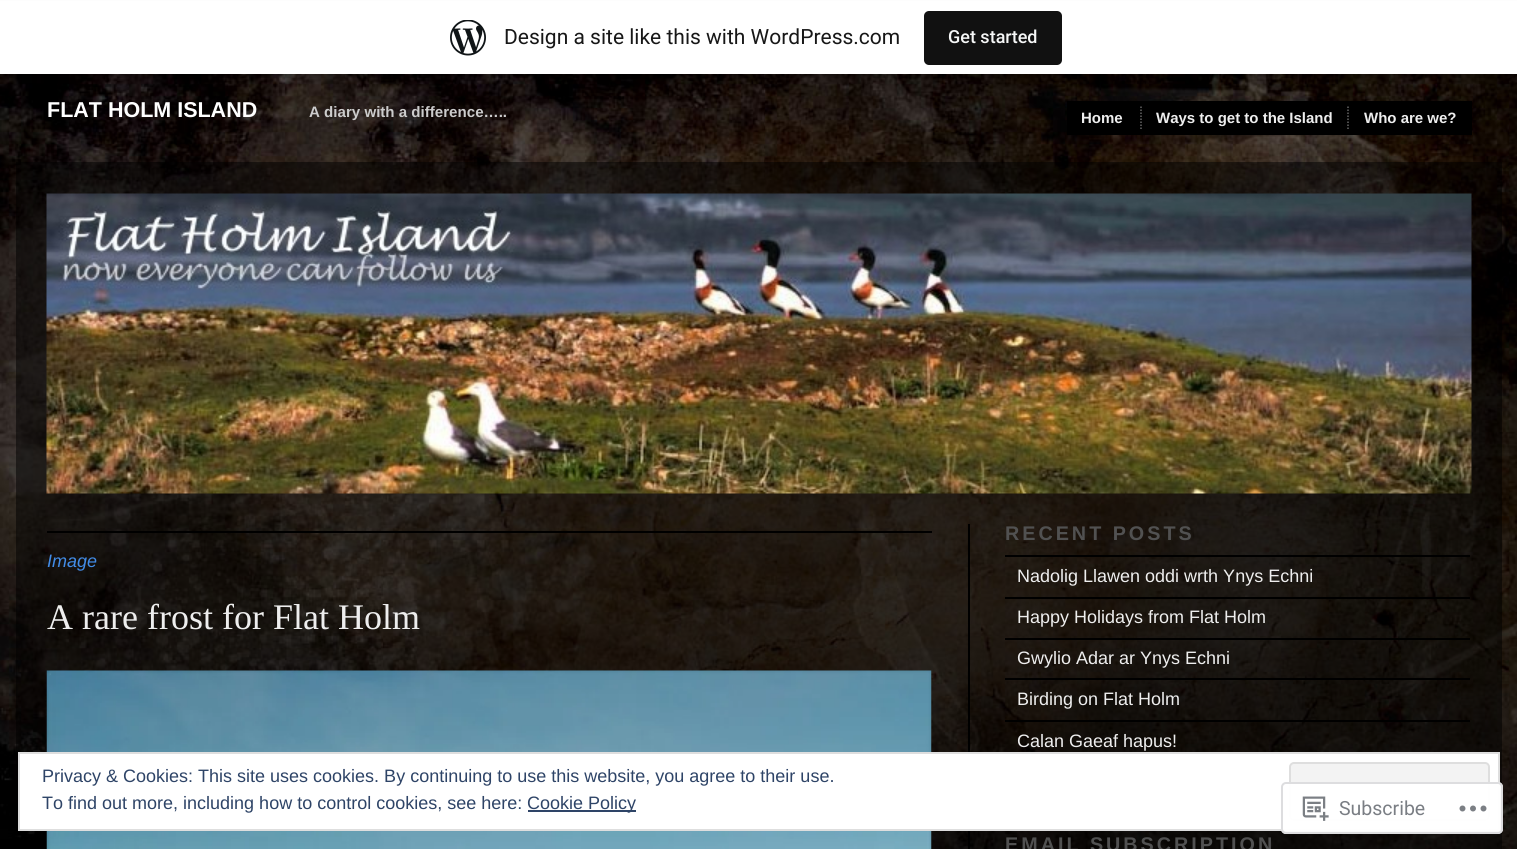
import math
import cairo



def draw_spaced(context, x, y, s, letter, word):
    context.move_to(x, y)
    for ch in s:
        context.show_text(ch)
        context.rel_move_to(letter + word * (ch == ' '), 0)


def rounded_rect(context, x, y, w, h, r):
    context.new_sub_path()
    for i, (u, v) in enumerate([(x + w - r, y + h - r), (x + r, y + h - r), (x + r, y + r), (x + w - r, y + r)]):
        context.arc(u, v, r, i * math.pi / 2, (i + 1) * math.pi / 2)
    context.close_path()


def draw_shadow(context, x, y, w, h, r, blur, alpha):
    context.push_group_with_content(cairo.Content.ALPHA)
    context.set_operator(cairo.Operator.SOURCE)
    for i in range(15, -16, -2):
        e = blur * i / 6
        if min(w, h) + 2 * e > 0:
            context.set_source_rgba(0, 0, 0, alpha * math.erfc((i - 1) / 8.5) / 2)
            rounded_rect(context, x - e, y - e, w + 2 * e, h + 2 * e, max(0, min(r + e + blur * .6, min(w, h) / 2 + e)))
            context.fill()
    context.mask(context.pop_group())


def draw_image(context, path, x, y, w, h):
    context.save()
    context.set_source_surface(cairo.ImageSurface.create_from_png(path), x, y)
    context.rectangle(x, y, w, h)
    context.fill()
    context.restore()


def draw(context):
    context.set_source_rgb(1, 1, 1)
    context.paint()
    draw_image(context, "images/1.png", 0, 74, 1517, 775)
    context.set_source_rgba(0, 0, 0, 0.5)
    context.rectangle(16, 162, 1486, 687)
    context.fill()
    context.set_source_rgb(0, 0, 0)
    draw_shadow(context, 0, 2, 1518, 73, 0, 1.5, 0.05)
    context.set_source_rgba(0, 0, 0, 0.08)
    context.new_path()
    context.move_to(2, 74)
    context.line_to(2, 78)
    context.line_to(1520, 78)
    context.line_to(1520, 5)
    context.line_to(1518, 5)
    context.line_to(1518, 74)
    context.close_path()
    context.fill()
    context.set_source_rgb(1, 1, 1)
    context.rectangle(0, 1, 1517, 73)
    context.fill()
    draw_image(context, "images/2.png", 450, 20, 36, 36)
    context.set_source_rgb(17 / 255, 17 / 255, 17 / 255)
    rounded_rect(context, 924, 11, 138, 54, 5)
    context.fill()
    draw_image(context, "images/3.png", 46, 193, 1426, 301)
    context.set_source_rgb(0, 0, 0)
    context.rectangle(968, 524, 2, 325)
    context.fill()
    context.rectangle(47, 531, 885, 2)
    context.fill()
    draw_image(context, "images/4.png", 46, 670, 886, 179)
    context.rectangle(1005, 555, 465, 2)
    context.fill()
    context.rectangle(1005, 597, 465, 2)
    context.fill()
    context.rectangle(1005, 638, 465, 2)
    context.fill()
    context.rectangle(1005, 678, 465, 2)
    context.fill()
    context.rectangle(1005, 720, 465, 2)
    context.fill()
    context.set_source_rgb(1, 1, 1)
    context.rectangle(19, 753, 1480, 77)
    context.fill_preserve()
    context.set_source_rgb(222 / 255, 222 / 255, 222 / 255)
    context.stroke()
    context.set_source_rgb(243 / 255, 243 / 255, 243 / 255)
    rounded_rect(context, 1290, 763, 199, 57, 4)
    context.fill_preserve()
    context.set_source_rgb(222 / 255, 222 / 255, 222 / 255)
    context.stroke()
    context.set_source_rgba(1, 1, 1, 0.98)
    rounded_rect(context, 1281, 782, 222, 52, 5)
    context.fill()
    rounded_rect(context, 1282, 783, 220, 50, 4)
    context.set_source_rgba(220 / 255, 220 / 255, 222 / 255, 0.98)
    context.stroke()
    draw_image(context, "images/5.png", 1302, 796, 27, 25)
    draw_image(context, "images/6.png", 1459, 805, 28, 7)
    context.set_source_rgb(0, 0, 0)
    context.rectangle(1067, 101, 405, 34)
    context.fill()
    context.new_path()
    context.move_to(1141, 106.5)
    context.line_to(1141, 129)
    context.set_source_rgb(102 / 255, 102 / 255, 102 / 255)
    context.set_line_width(1.5)
    context.set_dash([1.5, 1.5])
    context.stroke()
    context.new_path()
    context.move_to(1348, 106.5)
    context.line_to(1348, 129)
    context.stroke()
    context.set_source_rgb(46 / 255, 68 / 255, 103 / 255)
    context.rectangle(528, 810, 108, 2)
    context.fill()
    context.select_font_face("Roboto")
    context.set_font_size(21)
    context.set_source_rgb(23 / 255, 23 / 255, 23 / 255)
    context.move_to(504, 44)
    context.show_text("Design a site like this with WordPress.com")
    context.select_font_face("Roboto Medium")
    context.set_font_size(18)
    context.set_source_rgb(246 / 255, 247 / 255, 247 / 255)
    context.move_to(948, 43)
    context.show_text("Get started")
    context.select_font_face("Liberation Sans", cairo.FontSlant.ITALIC)
    context.set_source_rgb(66 / 255, 140 / 255, 231 / 255)
    context.move_to(47, 567)
    context.show_text("Image")
    context.select_font_face("Liberation Serif")
    context.set_font_size(36)
    context.set_source_rgb(238 / 255, 238 / 255, 238 / 255)
    context.move_to(47, 629)
    context.show_text("A rare frost for Flat Holm")
    context.select_font_face("Liberation Sans", cairo.FontSlant.NORMAL, cairo.FontWeight.BOLD)
    context.set_font_size(19.75)
    context.set_source_rgb(81 / 255, 81 / 255, 81 / 255)
    draw_spaced(context, 1005, 540, "RECENT POSTS", 3, 0)
    context.select_font_face("Liberation Sans")
    context.set_font_size(18)
    context.set_source_rgb(238 / 255, 238 / 255, 238 / 255)
    context.move_to(1017, 582)
    context.show_text("Nadolig Llawen oddi wrth Ynys Echni")
    context.move_to(1017, 623)
    context.show_text("Happy Holidays from Flat Holm")
    context.move_to(1017, 664)
    context.show_text("Gwylio Adar ar Ynys Echni")
    context.move_to(1017, 705)
    context.show_text("Birding on Flat Holm")
    context.move_to(1017, 747)
    context.show_text("Calan Gaeaf hapus!")
    context.select_font_face("Liberation Sans", cairo.FontSlant.NORMAL, cairo.FontWeight.BOLD)
    context.set_font_size(19.75)
    context.set_source_rgb(81 / 255, 81 / 255, 81 / 255)
    draw_spaced(context, 1005, 851, "EMAIL SUBSCRIPTION", 3, 0)
    context.select_font_face("Roboto")
    context.set_font_size(19.5)
    context.set_source_rgb(122 / 255, 126 / 255, 132 / 255)
    context.move_to(1339, 815)
    context.show_text("Subscribe")
    context.select_font_face("Liberation Sans", cairo.FontSlant.NORMAL, cairo.FontWeight.BOLD)
    context.set_font_size(21.5)
    context.set_source_rgb(1, 1, 1)
    context.move_to(47, 117)
    context.show_text("FLAT HOLM ISLAND")
    context.set_font_size(15.1)
    context.set_source_rgb(204 / 255, 204 / 255, 204 / 255)
    context.move_to(309, 117)
    context.show_text("A diary with a difference…..")
    context.set_font_size(15)
    context.set_source_rgb(238 / 255, 238 / 255, 238 / 255)
    context.move_to(1081, 123)
    context.show_text("Home")
    context.move_to(1156, 123)
    context.show_text("Ways to get to the Island")
    context.move_to(1364, 123)
    context.show_text("Who are we?")
    context.select_font_face("Liberation Sans")
    context.set_font_size(18)
    context.set_source_rgb(46 / 255, 68 / 255, 103 / 255)
    context.move_to(42, 782)
    context.show_text("Privacy & Cookies: This site uses cookies. By continuing to use this website, you agree to their use.")
    context.move_to(42, 809)
    context.show_text("To find out more, including how to control cookies, see here:")
    context.move_to(527, 809)
    context.show_text("Cookie Policy")


surface = cairo.ImageSurface(cairo.Format.RGB24, 1517, 849)
context = cairo.Context(surface)
options = cairo.FontOptions()
options.set_hint_metrics(cairo.HintMetrics.OFF)
options.set_hint_style(cairo.HintStyle.NONE)
context.set_font_options(options)
context.set_miter_limit(4)
draw(context)
surface.write_to_png("out.png")
